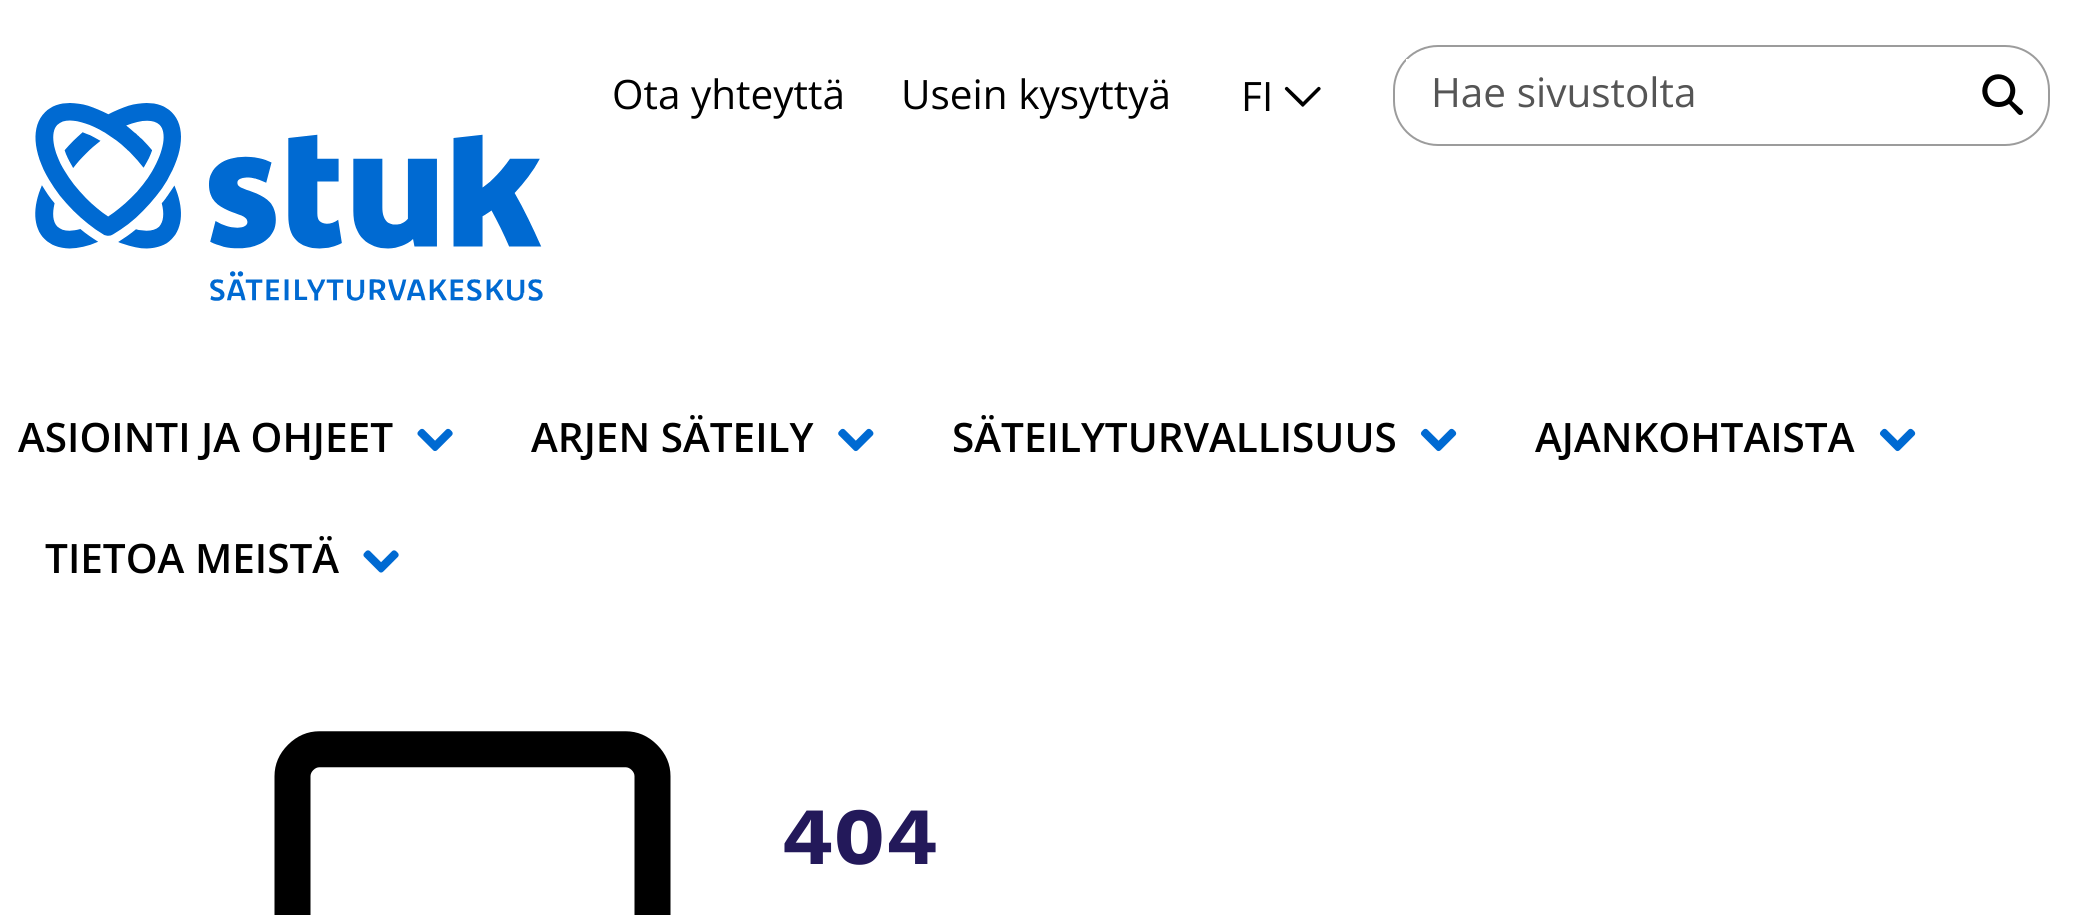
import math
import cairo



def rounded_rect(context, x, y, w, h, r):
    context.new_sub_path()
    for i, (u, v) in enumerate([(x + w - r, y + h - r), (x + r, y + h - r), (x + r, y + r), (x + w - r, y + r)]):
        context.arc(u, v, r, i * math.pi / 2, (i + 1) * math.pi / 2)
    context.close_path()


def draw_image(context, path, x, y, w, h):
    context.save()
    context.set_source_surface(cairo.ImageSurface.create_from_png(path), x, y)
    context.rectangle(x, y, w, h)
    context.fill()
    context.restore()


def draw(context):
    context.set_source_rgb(1, 1, 1)
    context.paint()
    context.set_source_rgb(0, 0, 0)
    context.new_path()
    context.move_to(1304, 106)
    context.line_to(1320, 90)
    context.curve_to(1322, 88.5, 1319, 85.5, 1317.5, 87.5)
    context.line_to(1303, 102)
    context.line_to(1288, 87.5)
    context.curve_to(1286.5, 85.5, 1283.5, 88.5, 1285.5, 90)
    context.line_to(1301.5, 106)
    context.curve_to(1302, 107, 1303.5, 107, 1304, 106)
    context.close_path()
    context.fill()
    rounded_rect(context, 1394, 46, 655, 99, 44)
    context.set_source_rgb(156 / 255, 156 / 255, 156 / 255)
    context.stroke()
    context.set_source_rgb(1, 1, 1)
    context.rectangle(1406, 59, 3, 3)
    context.fill()
    context.set_source_rgb(0, 0, 0)
    context.new_path()
    context.move_to(2022, 110)
    context.line_to(2012, 101)
    context.curve_to(2024, 82, 2000, 66, 1987, 79)
    context.curve_to(1974, 94, 1990, 115, 2009, 104)
    context.line_to(2018, 114)
    context.curve_to(2021, 117, 2025, 113, 2022, 110)
    context.close_path()
    context.move_to(1999, 79)
    context.curve_to(2014, 79, 2014, 102, 1999, 102)
    context.curve_to(1983, 102, 1984, 79, 1999, 79)
    context.close_path()
    context.fill()
    draw_image(context, "images/1.png", 35, 103, 508, 198)
    draw_image(context, "images/2.png", 417, 428, 36, 23)
    draw_image(context, "images/3.png", 838, 428, 36, 24)
    draw_image(context, "images/4.png", 1420, 428, 37, 24)
    draw_image(context, "images/4.png", 1879, 428, 37, 24)
    draw_image(context, "images/5.png", 363, 550, 36, 23)
    draw_image(context, "images/6.png", 274, 731, 397, 184)
    context.select_font_face("Open Sans")
    context.set_font_size(40.5)
    context.move_to(612, 109)
    context.show_text("Ota yhteyttä")
    context.move_to(901, 109)
    context.show_text("Usein kysyttyä")
    context.move_to(1241, 111)
    context.show_text("FI")
    context.set_source_rgb(85 / 255, 85 / 255, 85 / 255)
    context.move_to(1431, 107)
    context.show_text("Hae sivustolta")
    context.select_font_face("Open Sans SemiBold")
    context.set_source_rgb(0, 0, 0)
    context.move_to(18, 452)
    context.show_text("ASIOINTI JA OHJEET")
    context.move_to(531, 452)
    context.show_text("ARJEN SÄTEILY")
    context.move_to(952, 452)
    context.show_text("SÄTEILYTURVALLISUUS")
    context.move_to(1535, 452)
    context.show_text("AJANKOHTAISTA")
    context.move_to(45, 573)
    context.show_text("TIETOA MEISTÄ")
    context.select_font_face("Work Sans", cairo.FontSlant.NORMAL, cairo.FontWeight.BOLD)
    context.set_font_size(81)
    context.set_source_rgb(35 / 255, 25 / 255, 90 / 255)
    context.move_to(781, 864)
    context.show_text("404")


surface = cairo.ImageSurface(cairo.Format.RGB24, 2094, 915)
context = cairo.Context(surface)
options = cairo.FontOptions()
options.set_hint_metrics(cairo.HintMetrics.OFF)
options.set_hint_style(cairo.HintStyle.NONE)
context.set_font_options(options)
context.set_miter_limit(4)
draw(context)
surface.write_to_png("out.png")
